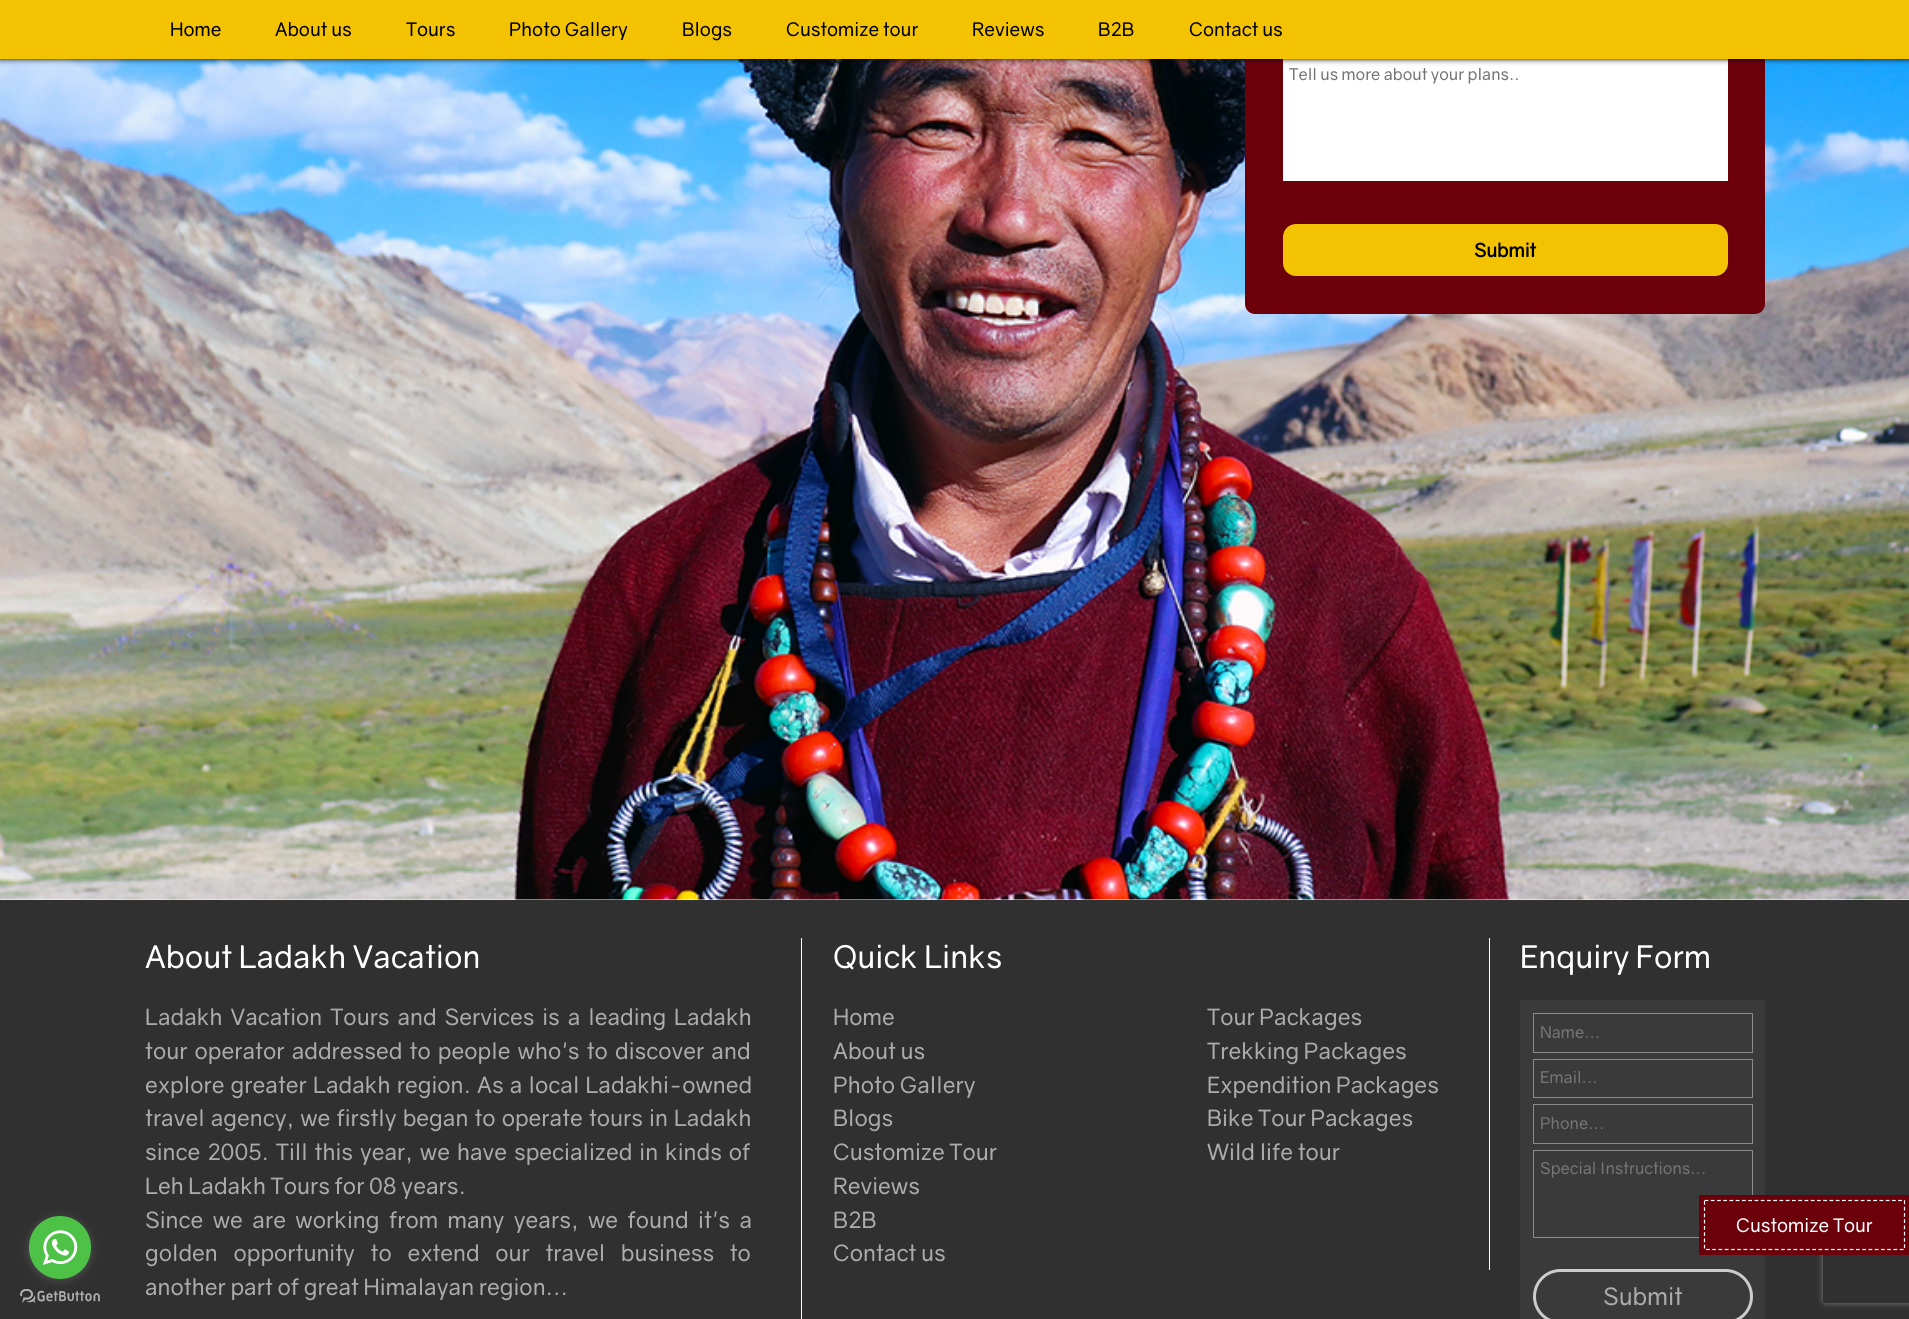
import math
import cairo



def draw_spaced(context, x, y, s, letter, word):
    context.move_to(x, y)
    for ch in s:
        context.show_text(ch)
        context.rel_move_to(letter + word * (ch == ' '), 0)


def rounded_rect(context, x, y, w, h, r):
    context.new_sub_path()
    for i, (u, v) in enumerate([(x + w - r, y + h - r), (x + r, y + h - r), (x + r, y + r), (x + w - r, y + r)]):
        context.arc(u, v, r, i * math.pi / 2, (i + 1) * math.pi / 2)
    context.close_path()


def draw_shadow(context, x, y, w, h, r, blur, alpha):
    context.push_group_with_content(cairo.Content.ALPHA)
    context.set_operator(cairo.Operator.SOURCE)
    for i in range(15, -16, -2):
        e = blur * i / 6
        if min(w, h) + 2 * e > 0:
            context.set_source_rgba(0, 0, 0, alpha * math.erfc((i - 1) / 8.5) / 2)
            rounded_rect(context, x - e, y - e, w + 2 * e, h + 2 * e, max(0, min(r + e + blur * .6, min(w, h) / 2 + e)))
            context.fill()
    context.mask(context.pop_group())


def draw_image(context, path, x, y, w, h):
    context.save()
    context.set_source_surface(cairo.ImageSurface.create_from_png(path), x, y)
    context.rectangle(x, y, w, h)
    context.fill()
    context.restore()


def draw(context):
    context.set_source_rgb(1, 1, 1)
    context.paint()
    draw_image(context, "images/1.png", 0, 59, 1909, 841)
    context.set_source_rgb(108 / 255, 0, 10 / 255)
    rounded_rect(context, 1245, -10, 520, 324, 10)
    context.fill()
    context.set_source_rgb(1, 1, 1)
    context.rectangle(1283, 59, 445, 122)
    context.fill()
    context.set_source_rgb(0, 0, 0)
    draw_shadow(context, 0, 0, 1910, 59, 0, 3, 1)
    context.set_source_rgb(243 / 255, 195 / 255, 3 / 255)
    context.rectangle(0, 0, 1909, 59)
    context.fill()
    rounded_rect(context, 1283, 224, 445, 52, 13)
    context.fill()
    context.set_source_rgb(48 / 255, 48 / 255, 48 / 255)
    context.rectangle(0, 900, 1909, 419)
    context.fill()
    draw_image(context, "images/3.png", 20, 1289, 80, 14)
    context.set_source_rgb(136 / 255, 136 / 255, 136 / 255)
    draw_shadow(context, 29, 1218, 62, 62, 31, 4.5, 0.4)
    context.set_source_rgb(77 / 255, 194 / 255, 71 / 255)
    rounded_rect(context, 29, 1216, 62, 63, 31)
    context.fill()
    draw_image(context, "images/2.png", 42, 1230, 36, 35)
    context.set_source_rgb(1, 1, 1)
    context.rectangle(801, 938, 1, 381)
    context.fill()
    context.rectangle(1489, 938, 1, 332)
    context.fill()
    context.set_source_rgb(58 / 255, 58 / 255, 58 / 255)
    context.rectangle(1520, 1000, 245, 319)
    context.fill()
    context.rectangle(1533.5, 1013.5, 219, 39)
    context.set_source_rgb(140 / 255, 140 / 255, 140 / 255)
    context.set_line_width(1)
    context.stroke()
    context.rectangle(1533.5, 1059.5, 219, 38)
    context.stroke()
    context.rectangle(1533.5, 1104.5, 219, 39)
    context.stroke()
    context.rectangle(1533.5, 1150.5, 219, 87)
    context.stroke()
    rounded_rect(context, 1534.5, 1270.5, 217, 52, 26)
    context.set_source_rgb(204 / 255, 204 / 255, 204 / 255)
    context.set_line_width(3)
    context.stroke()
    context.save()
    context.set_fill_rule(cairo.FillRule.EVEN_ODD)
    context.new_path()
    context.move_to(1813, 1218)
    context.line_to(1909, 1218)
    context.line_to(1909, 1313)
    context.line_to(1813, 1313)
    context.close_path()
    context.move_to(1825.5, 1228)
    context.line_to(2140.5, 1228)
    context.curve_to(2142, 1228, 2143, 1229, 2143, 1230.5)
    context.line_to(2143, 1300.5)
    context.curve_to(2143, 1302, 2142, 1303, 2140.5, 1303)
    context.line_to(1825.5, 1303)
    context.curve_to(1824, 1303, 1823, 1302, 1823, 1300.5)
    context.line_to(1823, 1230.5)
    context.curve_to(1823, 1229, 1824, 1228, 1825.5, 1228)
    context.close_path()
    context.clip()
    context.set_source_rgb(128 / 255, 128 / 255, 128 / 255)
    draw_shadow(context, 1823, 1228, 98, 75, 2.5, 3, 1)
    context.restore()
    context.set_source_rgb(108 / 255, 0, 10 / 255)
    context.rectangle(1699, 1195, 210, 60)
    context.fill()
    context.new_path()
    context.move_to(1704.5, 1200.5)
    context.line_to(1904.5, 1200.5)
    context.line_to(1904.5, 1249.5)
    context.line_to(1704.5, 1249.5)
    context.close_path()
    context.set_source_rgb(1, 1, 1)
    context.set_line_width(1.2)
    context.set_dash([3.75, 2.5])
    context.stroke()
    context.select_font_face("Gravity")
    context.set_font_size(18.75)
    context.set_source_rgb(0, 0, 0)
    context.move_to(170, 36)
    context.show_text("Home")
    context.move_to(275, 36)
    context.show_text("About us")
    context.move_to(406, 36)
    context.show_text("Tours")
    context.move_to(509, 36)
    context.show_text("Photo Gallery")
    context.move_to(682, 36)
    context.show_text("Blogs")
    context.move_to(786, 36)
    context.show_text("Customize tour")
    context.move_to(972, 36)
    context.show_text("Reviews")
    context.move_to(1098, 36)
    context.show_text("B2B")
    context.move_to(1189, 36)
    context.show_text("Contact us")
    context.set_font_size(16.25)
    context.set_source_rgb(117 / 255, 117 / 255, 117 / 255)
    context.move_to(1289, 80)
    context.show_text("Tell us more about your plans..")
    context.select_font_face("Gravity", cairo.FontSlant.NORMAL, cairo.FontWeight.BOLD)
    context.set_font_size(18.75)
    context.set_source_rgb(0, 0, 0)
    context.move_to(1474, 257)
    context.show_text("Submit")
    context.select_font_face("Gravity")
    context.set_font_size(31.25)
    context.set_source_rgb(1, 1, 1)
    context.move_to(145, 968)
    context.show_text("About Ladakh Vacation")
    context.set_font_size(22.5)
    context.set_source_rgb(172 / 255, 170 / 255, 170 / 255)
    draw_spaced(context, 145, 1025, "Ladakh Vacation Tours and Services is a leading Ladakh", 0, 3.25)
    draw_spaced(context, 145, 1059, "tour operator addressed to people who's to discover and", 0, 2.5)
    draw_spaced(context, 145, 1093, "explore greater Ladakh region. As a local Ladakhi-owned", 0, 1.5)
    draw_spaced(context, 145, 1126, "travel agency, we firstly began to operate tours in Ladakh", 0, 1.4)
    draw_spaced(context, 145, 1160, "since 2005. Till this year, we have specialized in kinds of", 0, 2.25)
    context.move_to(145, 1194)
    context.show_text("Leh Ladakh Tours for 08 years.")
    draw_spaced(context, 145, 1228, "Since we are working from many years, we found it's a", 0, 4.75)
    draw_spaced(context, 145, 1261, "golden opportunity to extend our travel business to", 0, 11)
    context.move_to(145, 1295)
    context.show_text("another part of great Himalayan region...")
    context.set_font_size(31.25)
    context.set_source_rgb(1, 1, 1)
    context.move_to(833, 968)
    context.show_text("Quick Links")
    context.set_font_size(22.5)
    context.set_source_rgb(172 / 255, 170 / 255, 170 / 255)
    context.move_to(833, 1025)
    context.show_text("Home")
    context.move_to(833, 1059)
    context.show_text("About us")
    context.move_to(833, 1093)
    context.show_text("Photo Gallery")
    context.move_to(833, 1126)
    context.show_text("Blogs")
    context.move_to(833, 1160)
    context.show_text("Customize Tour")
    context.move_to(833, 1194)
    context.show_text("Reviews")
    context.move_to(833, 1228)
    context.show_text("B2B")
    context.move_to(833, 1261)
    context.show_text("Contact us")
    context.move_to(1207, 1025)
    context.show_text("Tour Packages")
    context.move_to(1207, 1059)
    context.show_text("Trekking Packages")
    context.move_to(1207, 1093)
    context.show_text("Expendition Packages")
    context.move_to(1207, 1126)
    context.show_text("Bike Tour Packages")
    context.move_to(1207, 1160)
    context.show_text("Wild life tour")
    context.set_font_size(31.25)
    context.set_source_rgb(1, 1, 1)
    context.move_to(1520, 968)
    context.show_text("Enquiry Form")
    context.set_font_size(16.25)
    context.set_source_rgb(117 / 255, 117 / 255, 117 / 255)
    context.move_to(1540, 1038)
    context.show_text("Name...")
    context.move_to(1540, 1083)
    context.show_text("Email...")
    context.move_to(1540, 1129)
    context.show_text("Phone...")
    context.move_to(1540, 1174)
    context.show_text("Special Instructions...")
    context.set_font_size(24)
    context.set_source_rgb(172 / 255, 170 / 255, 170 / 255)
    context.move_to(1603, 1305)
    context.show_text("Submit")
    context.set_font_size(18.75)
    context.set_source_rgb(1, 1, 1)
    context.move_to(1736, 1232)
    context.show_text("Customize Tour")


surface = cairo.ImageSurface(cairo.Format.RGB24, 1909, 1319)
context = cairo.Context(surface)
options = cairo.FontOptions()
options.set_hint_metrics(cairo.HintMetrics.OFF)
options.set_hint_style(cairo.HintStyle.NONE)
context.set_font_options(options)
context.set_miter_limit(4)
draw(context)
surface.write_to_png("out.png")
